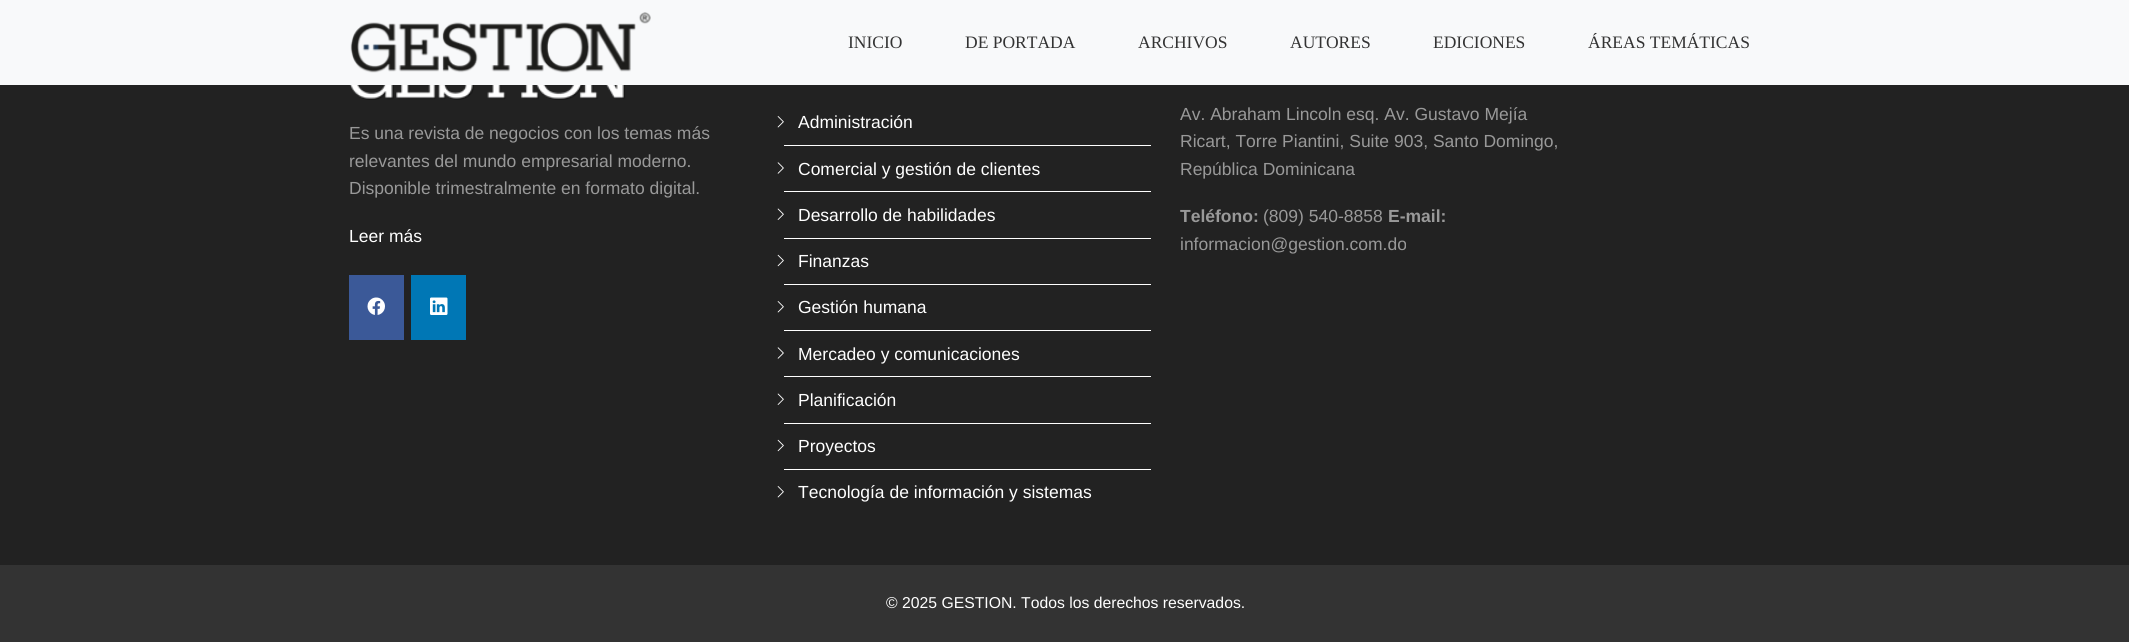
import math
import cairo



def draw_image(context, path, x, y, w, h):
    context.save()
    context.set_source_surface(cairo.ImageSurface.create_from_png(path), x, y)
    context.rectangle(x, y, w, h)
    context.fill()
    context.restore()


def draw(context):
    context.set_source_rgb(34 / 255, 34 / 255, 34 / 255)
    context.paint()
    context.set_source_rgb(248 / 255, 249 / 255, 250 / 255)
    context.rectangle(0, 0, 2129, 85)
    context.fill()
    draw_image(context, "images/1.png", 350, 12, 301, 61)
    draw_image(context, "images/2.png", 349, 85, 277, 15)
    context.set_source_rgb(59 / 255, 89 / 255, 152 / 255)
    context.rectangle(349, 275, 55, 65)
    context.fill()
    draw_image(context, "images/3.png", 367, 297, 18, 18)
    context.set_source_rgb(0, 119 / 255, 181 / 255)
    context.rectangle(411, 275, 55, 65)
    context.fill()
    draw_image(context, "images/4.png", 430, 297, 18, 18)
    context.set_source_rgb(1, 1, 1)
    context.rectangle(784, 145, 367, 1)
    context.fill()
    draw_image(context, "images/5.png", 777, 116, 7, 12)
    context.rectangle(784, 191, 367, 1)
    context.fill()
    draw_image(context, "images/6.png", 777, 162, 7, 12)
    context.rectangle(784, 238, 367, 1)
    context.fill()
    draw_image(context, "images/7.png", 777, 208, 7, 12)
    context.rectangle(784, 284, 367, 1)
    context.fill()
    draw_image(context, "images/8.png", 777, 254, 7, 13)
    context.rectangle(784, 330, 367, 1)
    context.fill()
    draw_image(context, "images/5.png", 777, 301, 7, 12)
    context.rectangle(784, 376, 367, 1)
    context.fill()
    draw_image(context, "images/6.png", 777, 347, 7, 12)
    context.rectangle(784, 423, 367, 1)
    context.fill()
    draw_image(context, "images/7.png", 777, 393, 7, 12)
    context.rectangle(784, 469, 367, 1)
    context.fill()
    draw_image(context, "images/8.png", 777, 439, 7, 13)
    draw_image(context, "images/5.png", 777, 486, 7, 12)
    context.set_source_rgb(51 / 255, 51 / 255, 51 / 255)
    context.rectangle(0, 565, 2129, 77)
    context.fill()
    context.select_font_face("Liberation Serif")
    context.set_font_size(17.5)
    context.move_to(848, 48)
    context.show_text("INICIO")
    context.move_to(965, 48)
    context.show_text("DE PORTADA")
    context.move_to(1138, 48)
    context.show_text("ARCHIVOS")
    context.move_to(1290, 48)
    context.show_text("AUTORES")
    context.move_to(1433, 48)
    context.show_text("EDICIONES")
    context.move_to(1588, 48)
    context.show_text("ÁREAS TEMÁTICAS")
    context.select_font_face("Liberation Sans")
    context.set_source_rgb(153 / 255, 153 / 255, 153 / 255)
    context.move_to(349, 139)
    context.show_text("Es una revista de negocios con los temas más")
    context.move_to(349, 167)
    context.show_text("relevantes del mundo empresarial moderno.")
    context.move_to(349, 194)
    context.show_text("Disponible trimestralmente en formato digital.")
    context.set_source_rgb(1, 1, 1)
    context.move_to(349, 242)
    context.show_text("Leer más")
    context.move_to(798, 128)
    context.show_text("Administración")
    context.move_to(798, 175)
    context.show_text("Comercial y gestión de clientes")
    context.move_to(798, 221)
    context.show_text("Desarrollo de habilidades")
    context.move_to(798, 267)
    context.show_text("Finanzas")
    context.move_to(798, 313)
    context.show_text("Gestión humana")
    context.move_to(798, 360)
    context.show_text("Mercadeo y comunicaciones")
    context.move_to(798, 406)
    context.show_text("Planificación")
    context.move_to(798, 452)
    context.show_text("Proyectos")
    context.move_to(798, 498)
    context.show_text("Tecnología de información y sistemas")
    context.set_source_rgb(153 / 255, 153 / 255, 153 / 255)
    context.move_to(1180, 120)
    context.show_text("Av. Abraham Lincoln esq. Av. Gustavo Mejía")
    context.move_to(1180, 147)
    context.show_text("Ricart, Torre Piantini, Suite 903, Santo Domingo,")
    context.move_to(1180, 175)
    context.show_text("República Dominicana")
    context.select_font_face("Liberation Sans", cairo.FontSlant.NORMAL, cairo.FontWeight.BOLD)
    context.move_to(1180, 222)
    context.show_text("Teléfono:")
    context.select_font_face("Liberation Sans")
    context.move_to(1263, 222)
    context.show_text("(809) 540-8858")
    context.select_font_face("Liberation Sans", cairo.FontSlant.NORMAL, cairo.FontWeight.BOLD)
    context.move_to(1388, 222)
    context.show_text("E-mail:")
    context.select_font_face("Liberation Sans")
    context.move_to(1180, 250)
    context.show_text("informacion@gestion.com.do")
    context.set_font_size(15.75)
    context.set_source_rgb(1, 1, 1)
    context.move_to(886, 608)
    context.show_text("© 2025 GESTION. Todos los derechos reservados.")


surface = cairo.ImageSurface(cairo.Format.RGB24, 2129, 642)
context = cairo.Context(surface)
options = cairo.FontOptions()
options.set_hint_metrics(cairo.HintMetrics.OFF)
options.set_hint_style(cairo.HintStyle.NONE)
context.set_font_options(options)
context.set_miter_limit(4)
draw(context)
surface.write_to_png("out.png")
